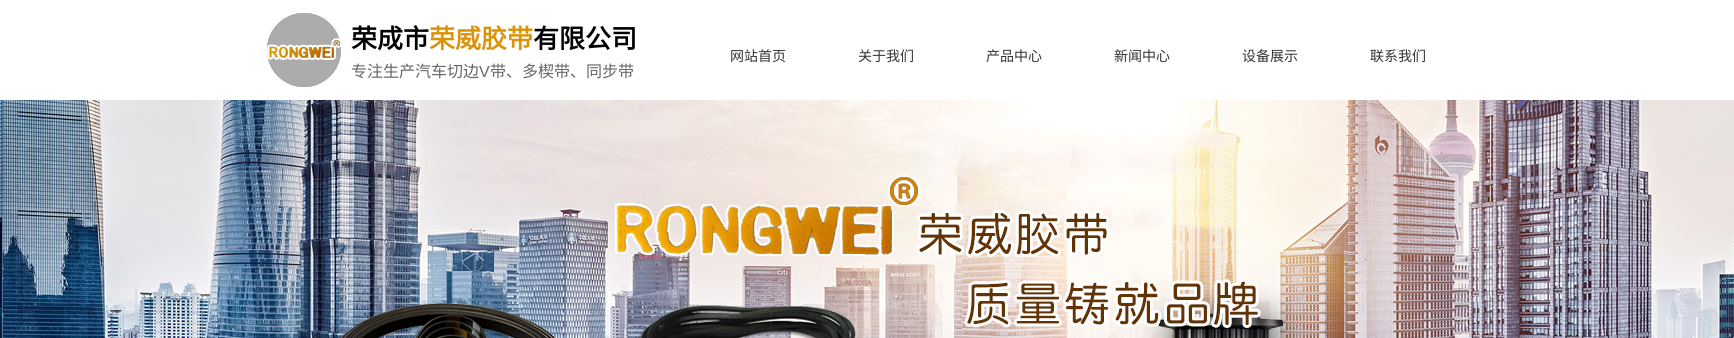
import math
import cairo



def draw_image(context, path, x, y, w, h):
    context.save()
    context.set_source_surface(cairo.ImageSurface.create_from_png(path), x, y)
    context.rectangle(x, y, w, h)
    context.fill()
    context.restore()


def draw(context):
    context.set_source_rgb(1, 1, 1)
    context.paint()
    draw_image(context, "images/1.png", 267, 13, 74, 74)
    draw_image(context, "images/2.png", 0, 100, 1734, 238)
    context.select_font_face("Noto Sans CJK SC", cairo.FontSlant.NORMAL, cairo.FontWeight.BOLD)
    context.set_font_size(26)
    context.set_source_rgb(0, 0, 0)
    context.move_to(351, 48)
    context.show_text("荣成市")
    context.set_source_rgb(220 / 255, 146 / 255, 7 / 255)
    context.move_to(429, 48)
    context.show_text("荣威胶带")
    context.set_source_rgb(0, 0, 0)
    context.move_to(533, 48)
    context.show_text("有限公司")
    context.select_font_face("Noto Sans CJK SC")
    context.set_font_size(16)
    context.set_source_rgb(102 / 255, 102 / 255, 102 / 255)
    context.move_to(351, 77)
    context.show_text("专注生产汽车切边")
    context.select_font_face("Liberation Sans")
    context.move_to(479, 77)
    context.show_text("V")
    context.select_font_face("Noto Sans CJK SC")
    context.move_to(490, 77)
    context.show_text("带、多楔带、同步带")
    context.set_font_size(14)
    context.set_source_rgb(51 / 255, 51 / 255, 51 / 255)
    context.move_to(730, 61)
    context.show_text("网站首页")
    context.move_to(858, 61)
    context.show_text("关于我们")
    context.move_to(986, 61)
    context.show_text("产品中心")
    context.move_to(1114, 61)
    context.show_text("新闻中心")
    context.move_to(1242, 61)
    context.show_text("设备展示")
    context.move_to(1370, 61)
    context.show_text("联系我们")


surface = cairo.ImageSurface(cairo.Format.RGB24, 1734, 338)
context = cairo.Context(surface)
options = cairo.FontOptions()
options.set_hint_metrics(cairo.HintMetrics.OFF)
options.set_hint_style(cairo.HintStyle.NONE)
context.set_font_options(options)
context.set_miter_limit(4)
draw(context)
surface.write_to_png("out.png")
